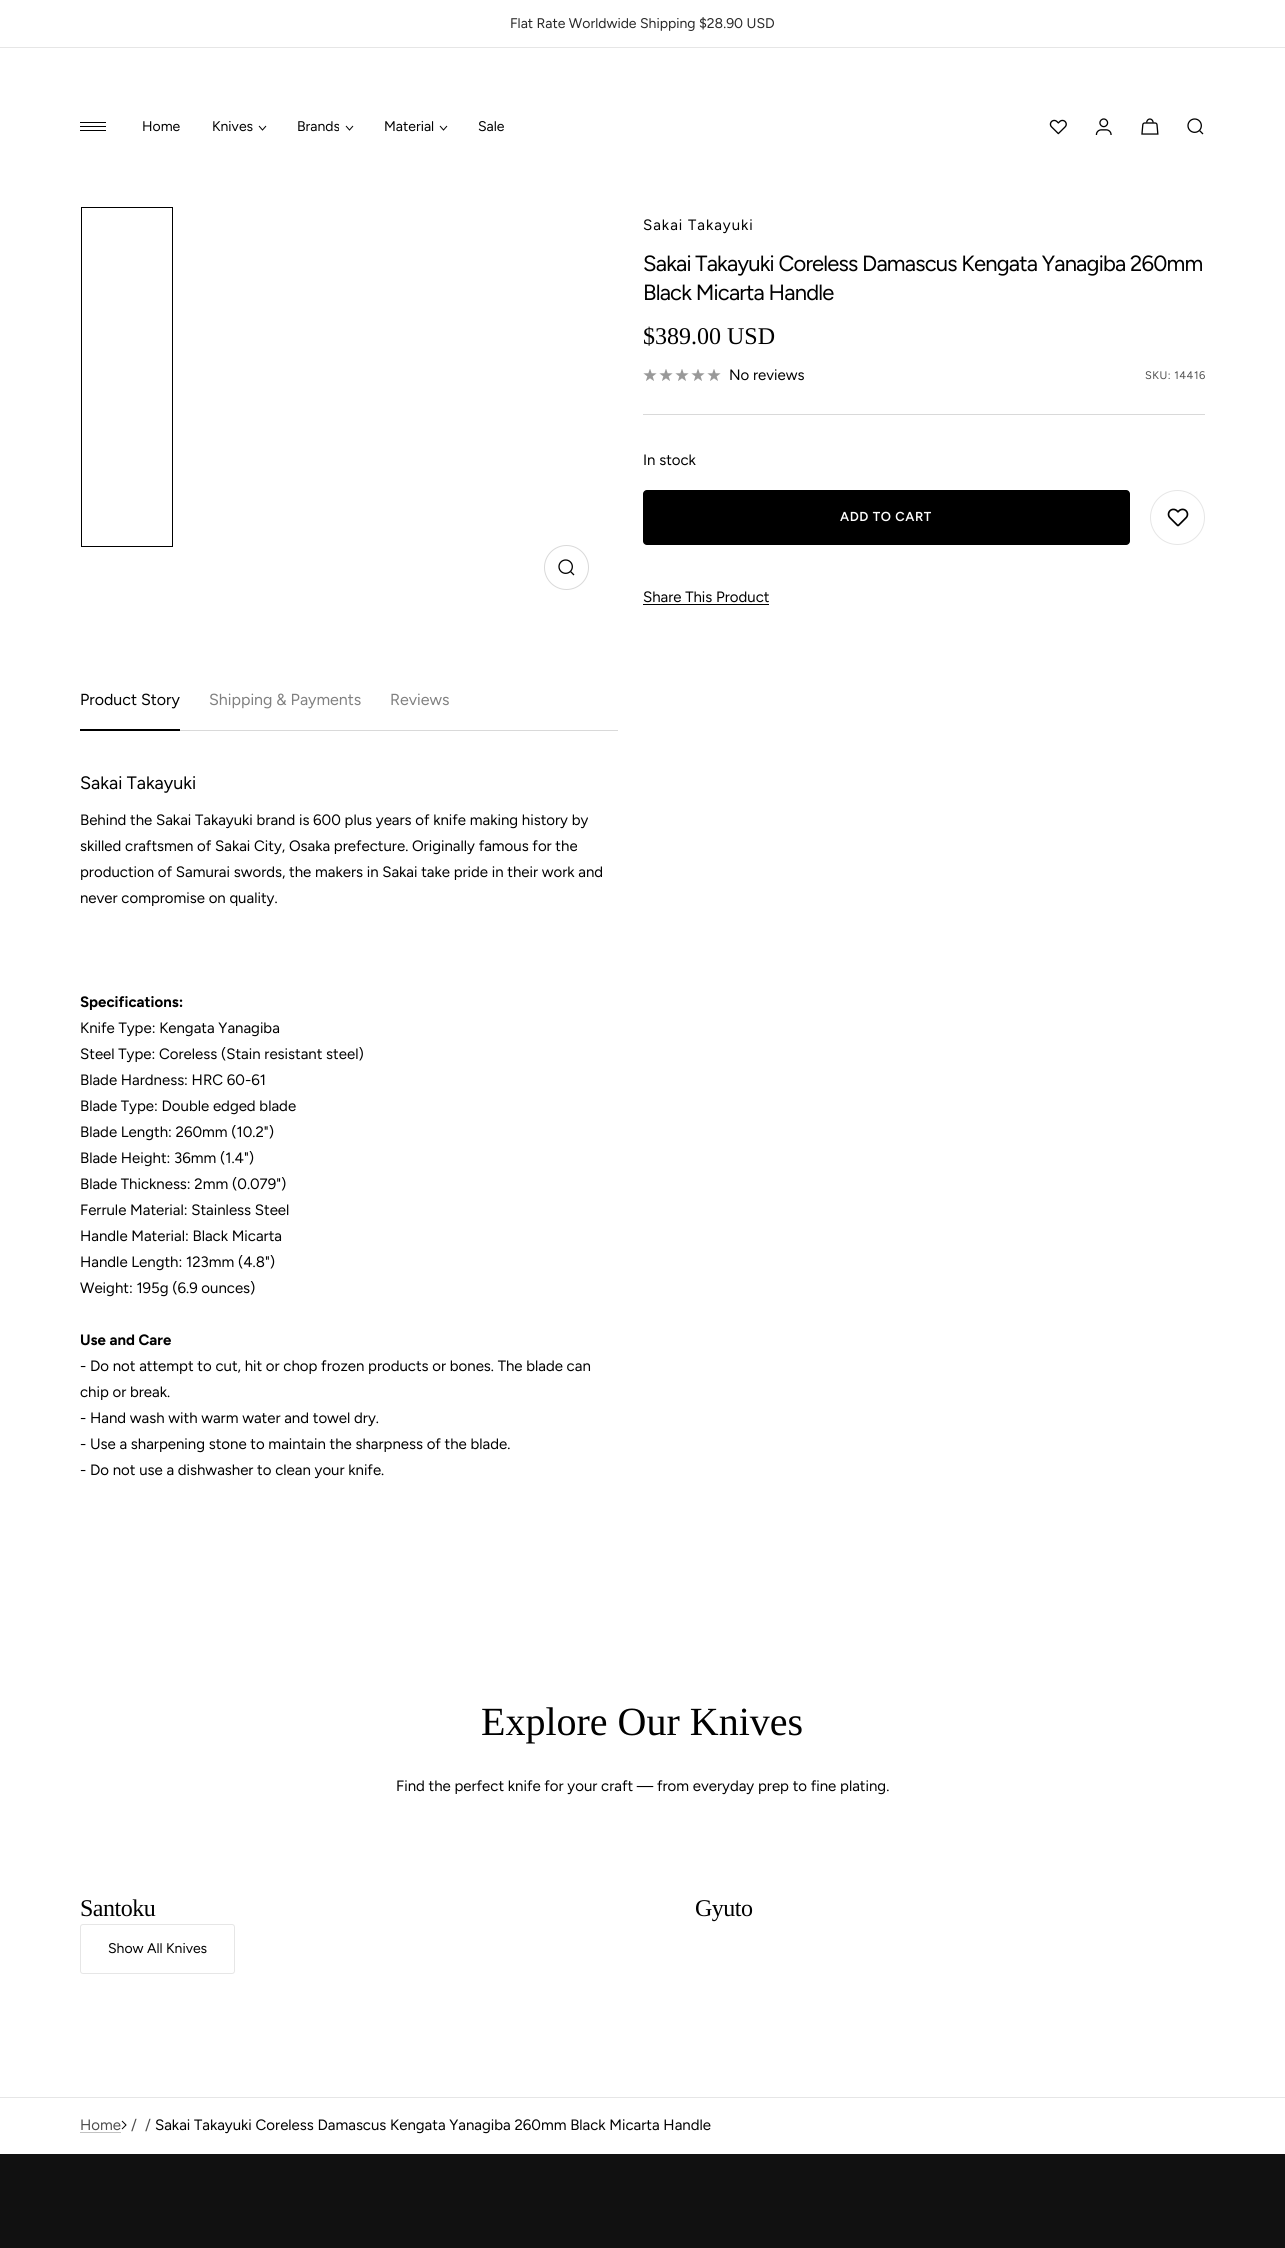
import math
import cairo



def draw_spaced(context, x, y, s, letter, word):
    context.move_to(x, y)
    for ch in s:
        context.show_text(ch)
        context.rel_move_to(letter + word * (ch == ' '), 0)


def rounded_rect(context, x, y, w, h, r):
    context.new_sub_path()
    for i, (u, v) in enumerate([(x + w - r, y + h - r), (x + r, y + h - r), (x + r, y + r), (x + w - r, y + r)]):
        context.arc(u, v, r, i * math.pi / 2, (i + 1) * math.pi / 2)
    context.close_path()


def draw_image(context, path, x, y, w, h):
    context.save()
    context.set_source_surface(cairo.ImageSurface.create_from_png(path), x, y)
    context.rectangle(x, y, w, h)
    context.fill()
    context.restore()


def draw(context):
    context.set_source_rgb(1, 1, 1)
    context.paint()
    context.set_source_rgb(230 / 255, 230 / 255, 230 / 255)
    context.rectangle(0, 47, 1285, 1)
    context.fill()
    context.set_source_rgb(0, 0, 0)
    context.rectangle(80, 130, 26, 1)
    context.fill()
    context.rectangle(80, 126, 26, 1)
    context.fill()
    context.rectangle(80, 122, 26, 1)
    context.fill()
    context.new_path()
    context.move_to(266, 126)
    context.line_to(262.5, 130)
    context.line_to(259, 126)
    context.set_line_width(1)
    context.stroke()
    context.new_path()
    context.move_to(353, 126)
    context.line_to(349.5, 130)
    context.line_to(346, 126)
    context.stroke()
    context.new_path()
    context.move_to(447, 126)
    context.line_to(443.5, 130)
    context.line_to(440, 126)
    context.stroke()
    draw_image(context, "images/1.png", 1049, 119, 18, 16)
    draw_image(context, "images/2.png", 1095, 118, 17, 17)
    draw_image(context, "images/3.png", 1141, 118, 18, 17)
    draw_image(context, "images/4.png", 1187, 118, 17, 17)
    context.rectangle(81.5, 207.5, 91, 339)
    context.stroke()
    context.arc(566.5, 567.5, 22, 0, 2 * math.pi)
    context.set_source_rgb(217 / 255, 217 / 255, 217 / 255)
    context.stroke()
    draw_image(context, "images/4.png", 558, 559, 17, 17)
    context.rectangle(643, 414, 562, 1)
    context.fill()
    draw_image(context, "images/5.png", 643, 369, 14, 12)
    draw_image(context, "images/5.png", 659, 369, 14, 12)
    draw_image(context, "images/5.png", 675, 369, 14, 12)
    draw_image(context, "images/5.png", 691, 369, 14, 12)
    draw_image(context, "images/5.png", 707, 369, 14, 12)
    context.set_source_rgb(0, 0, 0)
    rounded_rect(context, 643, 490, 487, 55, 4)
    context.fill()
    gradient = cairo.LinearGradient(884, 427, 889, 553)
    gradient.add_color_stop_rgba(0, 0, 0, 0, 1)
    gradient.add_color_stop_rgba(0.1, 0, 0, 0, 1)
    gradient.add_color_stop_rgba(0.1, 0, 0, 0, 0.07)
    gradient.add_color_stop_rgba(1, 0, 0, 0, 0.07)
    context.set_source(gradient)
    rounded_rect(context, 643, 490, 487, 55, 4)
    context.fill()
    context.arc(1177.5, 517.5, 27, 0, 2 * math.pi)
    context.set_source_rgb(230 / 255, 230 / 255, 230 / 255)
    context.stroke()
    draw_image(context, "images/6.png", 1167, 508, 22, 19)
    context.set_source_rgb(0, 0, 0)
    context.rectangle(643, 604, 126, 1)
    context.fill()
    context.set_source_rgb(217 / 255, 217 / 255, 217 / 255)
    context.rectangle(180, 730, 438, 1)
    context.fill()
    context.set_source_rgb(0, 0, 0)
    context.rectangle(80, 729, 100, 2)
    context.fill()
    rounded_rect(context, 80.5, 1924.5, 154, 49, 2.5)
    context.set_source_rgb(230 / 255, 230 / 255, 230 / 255)
    context.stroke()
    context.rectangle(0, 2097, 1285, 1)
    context.fill()
    context.set_source_rgb(193 / 255, 193 / 255, 193 / 255)
    context.rectangle(80, 2132, 41, 1)
    context.fill()
    context.new_path()
    context.move_to(122, 2121)
    context.line_to(126, 2125)
    context.line_to(122, 2129)
    context.set_source_rgb(0, 0, 0)
    context.stroke()
    context.set_source_rgb(17 / 255, 17 / 255, 17 / 255)
    context.rectangle(0, 2154, 1285, 94)
    context.fill()
    context.select_font_face("Figtree")
    context.set_font_size(14)
    context.set_source_rgb(40 / 255, 40 / 255, 40 / 255)
    context.move_to(510, 28)
    context.show_text("Flat Rate Worldwide Shipping $28.90 USD")
    context.set_source_rgb(0, 0, 0)
    context.move_to(142, 131)
    context.show_text("Home")
    context.move_to(212, 131)
    context.show_text("Knives")
    context.move_to(297, 131)
    context.show_text("Brands")
    context.move_to(384, 131)
    context.show_text("Material")
    context.move_to(478, 131)
    context.show_text("Sale")
    context.set_font_size(15)
    draw_spaced(context, 643, 230, "Sakai Takayuki", 1, 0)
    context.set_font_size(22)
    draw_spaced(context, 643, 271, "Sakai Takayuki Coreless Damascus Kengata Yanagiba 260mm", -0.8, 0)
    draw_spaced(context, 643, 300, "Black Micarta Handle", -0.8, 0)
    context.select_font_face("Liberation Serif")
    context.set_font_size(24)
    context.move_to(643, 344)
    context.show_text("$389.00 USD")
    context.select_font_face("Figtree")
    context.set_font_size(15)
    context.move_to(729, 380)
    context.show_text("No reviews")
    context.set_font_size(11)
    context.set_source_rgb(77 / 255, 77 / 255, 77 / 255)
    draw_spaced(context, 1145, 379, "SKU: 14416", 0.5, 0)
    context.set_font_size(15)
    context.set_source_rgb(0, 0, 0)
    context.move_to(643, 465)
    context.show_text("In stock")
    context.select_font_face("Figtree SemiBold")
    context.set_font_size(13)
    context.set_source_rgb(1, 1, 1)
    draw_spaced(context, 840, 521, "ADD TO CART", 0.6, 0)
    context.select_font_face("Figtree")
    context.set_font_size(15)
    context.set_source_rgb(0, 0, 0)
    context.move_to(643, 602)
    context.show_text("Share This Product")
    context.set_font_size(16)
    context.move_to(80, 705)
    context.show_text("Product Story")
    context.set_source_rgb(128 / 255, 128 / 255, 128 / 255)
    context.move_to(209, 705)
    context.show_text("Shipping & Payments")
    context.move_to(390, 705)
    context.show_text("Reviews")
    context.set_font_size(18)
    context.set_source_rgb(0, 0, 0)
    context.move_to(80, 789)
    context.show_text("Sakai Takayuki")
    context.set_font_size(15)
    context.move_to(80, 825)
    context.show_text("Behind the Sakai Takayuki brand is 600 plus years of knife making history by")
    context.move_to(80, 851)
    context.show_text("skilled craftsmen of Sakai City, Osaka prefecture. Originally famous for the")
    context.move_to(80, 877)
    context.show_text("production of Samurai swords, the makers in Sakai take pride in their work and")
    context.move_to(80, 903)
    context.show_text("never compromise on quality.")
    context.select_font_face("Figtree", cairo.FontSlant.NORMAL, cairo.FontWeight.BOLD)
    context.move_to(80, 1007)
    context.show_text("Specifications:")
    context.select_font_face("Figtree")
    context.move_to(80, 1033)
    context.show_text("Knife Type: Kengata Yanagiba")
    context.move_to(80, 1059)
    context.show_text("Steel Type: Coreless (Stain resistant steel)")
    context.move_to(80, 1085)
    context.show_text("Blade Hardness: HRC 60-61")
    context.move_to(80, 1111)
    context.show_text("Blade Type: Double edged blade")
    context.move_to(80, 1137)
    context.show_text("Blade Length: 260mm (10.2\")")
    context.move_to(80, 1163)
    context.show_text("Blade Height: 36mm (1.4\")")
    context.move_to(80, 1189)
    context.show_text("Blade Thickness: 2mm (0.079\")")
    context.move_to(80, 1215)
    context.show_text("Ferrule Material: Stainless Steel")
    context.move_to(80, 1241)
    context.show_text("Handle Material: Black Micarta")
    context.move_to(80, 1267)
    context.show_text("Handle Length: 123mm (4.8\")")
    context.move_to(80, 1293)
    context.show_text("Weight: 195g (6.9 ounces)")
    context.select_font_face("Figtree", cairo.FontSlant.NORMAL, cairo.FontWeight.BOLD)
    context.move_to(80, 1345)
    context.show_text("Use and Care")
    context.select_font_face("Figtree")
    context.move_to(80, 1371)
    context.show_text("- Do not attempt to cut, hit or chop frozen products or bones. The blade can")
    context.move_to(80, 1397)
    context.show_text("chip or break.")
    context.move_to(80, 1423)
    context.show_text("- Hand wash with warm water and towel dry.")
    context.move_to(80, 1449)
    context.show_text("- Use a sharpening stone to maintain the sharpness of the blade.")
    context.move_to(80, 1475)
    context.show_text("- Do not use a dishwasher to clean your knife.")
    context.select_font_face("Liberation Serif")
    context.set_font_size(40)
    context.move_to(481, 1735)
    context.show_text("Explore Our Knives")
    context.select_font_face("Figtree")
    context.set_font_size(15)
    context.move_to(396, 1791)
    context.show_text("Find the perfect knife for your craft — from everyday prep to fine plating.")
    context.select_font_face("Liberation Serif")
    context.set_font_size(24)
    draw_spaced(context, 80, 1916, "Santoku", -0.5, 0)
    draw_spaced(context, 695, 1916, "Gyuto", -0.5, 0)
    context.select_font_face("Figtree")
    context.set_font_size(14)
    context.move_to(108, 1953)
    context.show_text("Show All Knives")
    context.set_font_size(15)
    context.set_source_rgb(77 / 255, 77 / 255, 77 / 255)
    context.move_to(80, 2130)
    context.show_text("Home")
    context.move_to(131, 2130)
    context.show_text("/")
    context.move_to(145, 2130)
    context.show_text("/")
    context.set_source_rgb(0, 0, 0)
    context.move_to(155, 2130)
    context.show_text("Sakai Takayuki Coreless Damascus Kengata Yanagiba 260mm Black Micarta Handle")


surface = cairo.ImageSurface(cairo.Format.RGB24, 1285, 2248)
context = cairo.Context(surface)
options = cairo.FontOptions()
options.set_hint_metrics(cairo.HintMetrics.OFF)
options.set_hint_style(cairo.HintStyle.NONE)
context.set_font_options(options)
context.set_miter_limit(4)
draw(context)
surface.write_to_png("out.png")
